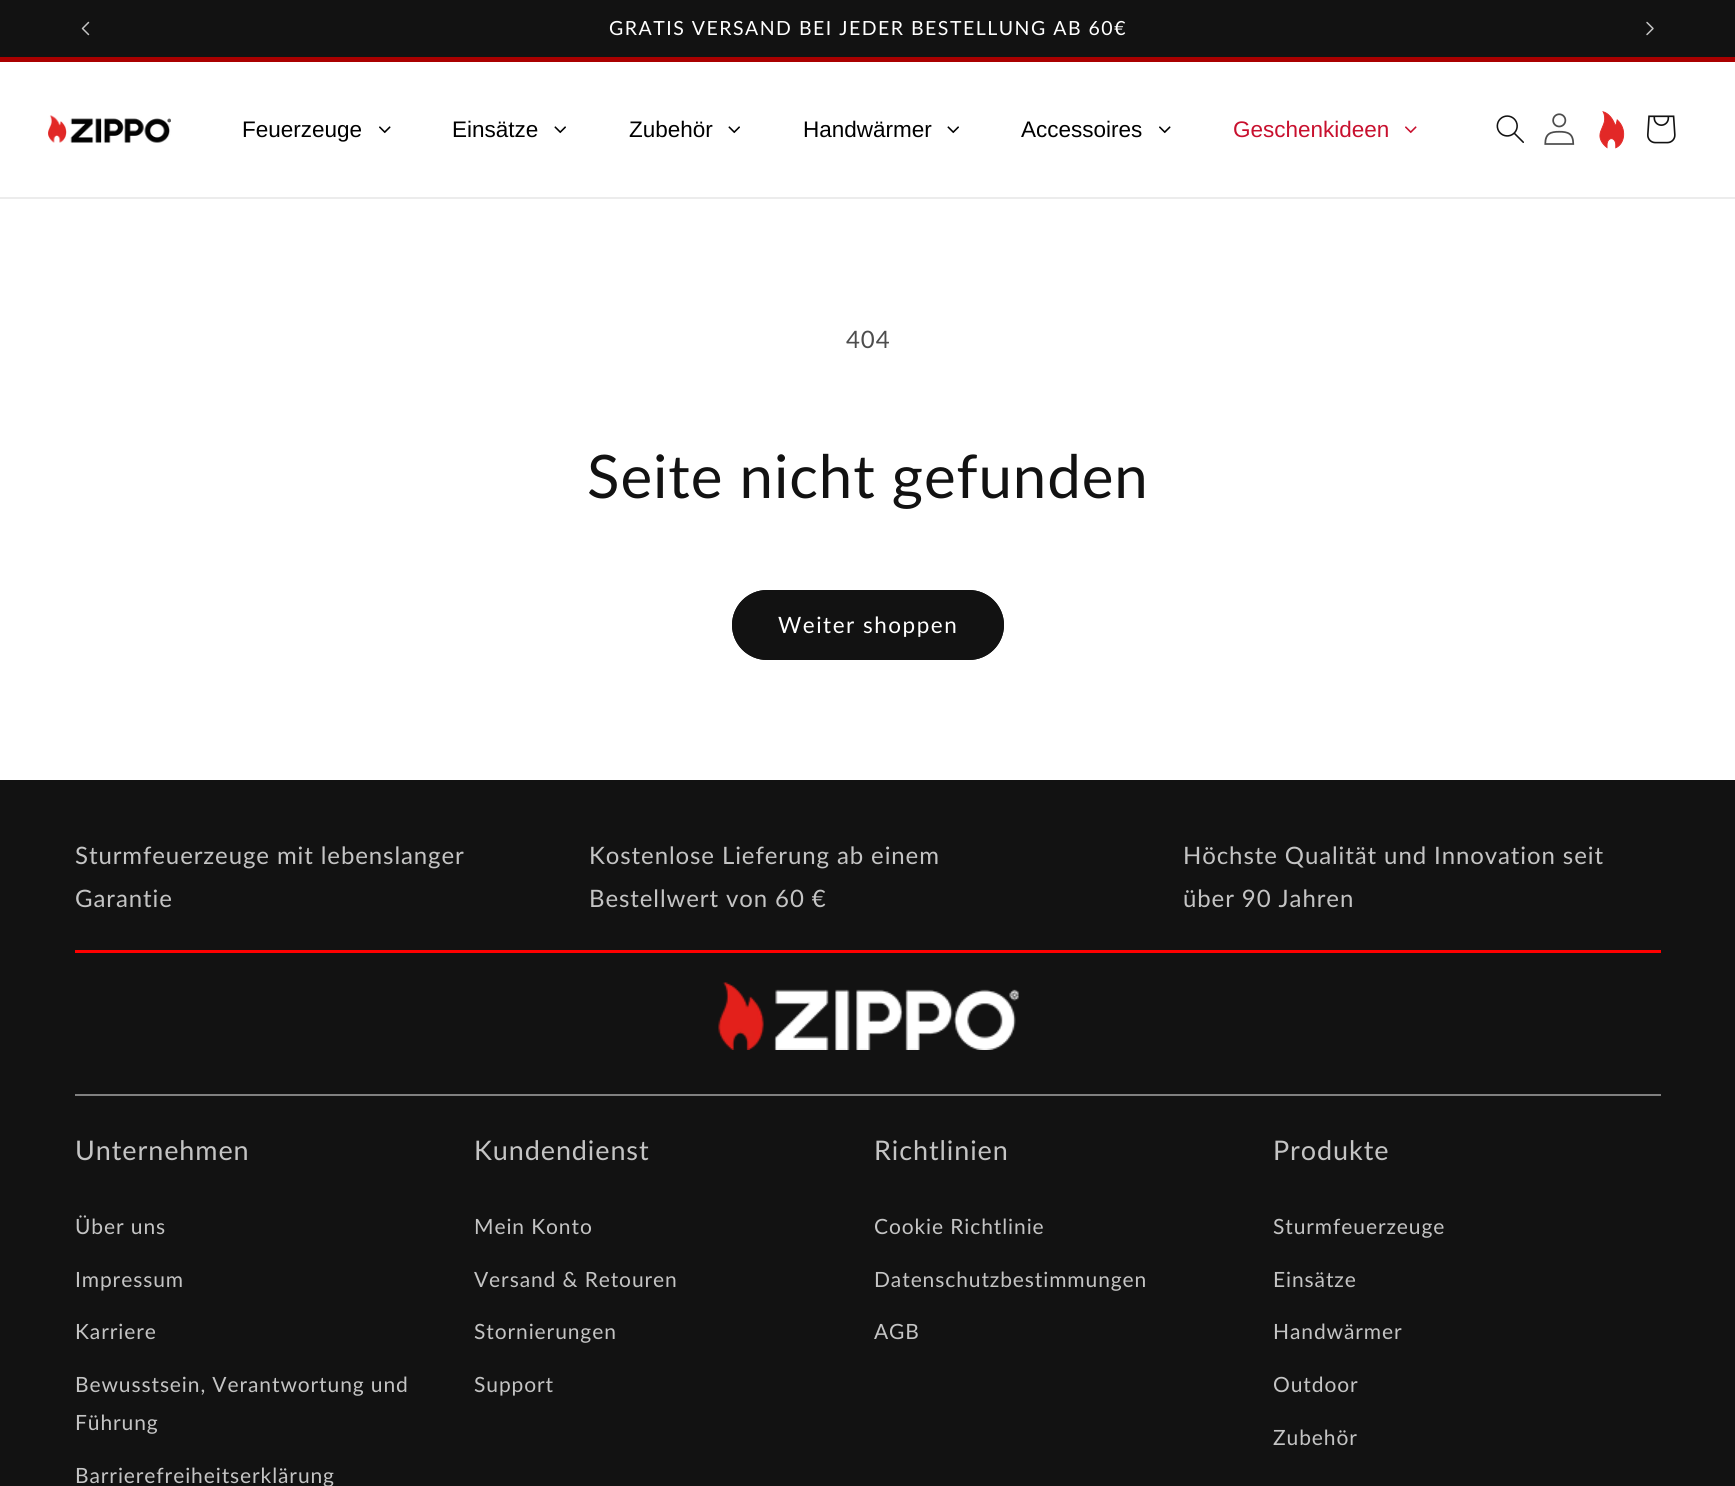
import math
import cairo



def draw_spaced(context, x, y, s, letter, word):
    context.move_to(x, y)
    for ch in s:
        context.show_text(ch)
        context.rel_move_to(letter + word * (ch == ' '), 0)


def rounded_rect(context, x, y, w, h, r):
    context.new_sub_path()
    for i, (u, v) in enumerate([(x + w - r, y + h - r), (x + r, y + h - r), (x + r, y + r), (x + w - r, y + r)]):
        context.arc(u, v, r, i * math.pi / 2, (i + 1) * math.pi / 2)
    context.close_path()


def draw_image(context, path, x, y, w, h):
    context.save()
    context.set_source_surface(cairo.ImageSurface.create_from_png(path), x, y)
    context.rectangle(x, y, w, h)
    context.fill()
    context.restore()


def draw(context):
    context.set_source_rgb(1, 1, 1)
    context.paint()
    context.set_source_rgb(18 / 255, 18 / 255, 18 / 255)
    context.rectangle(0, 0, 1735, 57)
    context.fill()
    context.set_source_rgb(170 / 255, 0, 0)
    context.rectangle(0, 57, 1735, 5)
    context.fill()
    draw_image(context, "images/1.png", 81, 21, 9, 15)
    draw_image(context, "images/2.png", 1646, 21, 8, 15)
    context.set_source_rgb(236 / 255, 236 / 255, 236 / 255)
    context.rectangle(0, 197, 1735, 2)
    context.fill()
    draw_image(context, "images/3.png", 48, 115, 123, 28)
    draw_image(context, "images/4.png", 379, 126, 12, 8)
    draw_image(context, "images/5.png", 554, 126, 12, 8)
    draw_image(context, "images/5.png", 728, 126, 12, 8)
    draw_image(context, "images/5.png", 947, 126, 12, 8)
    draw_image(context, "images/4.png", 1159, 126, 12, 8)
    draw_image(context, "images/6.png", 1405, 126, 12, 8)
    draw_image(context, "images/7.png", 1496, 115, 28, 28)
    draw_image(context, "images/8.png", 1544, 113, 31, 32)
    draw_image(context, "images/9.png", 1599, 111, 26, 38)
    draw_image(context, "images/10.png", 1647, 115, 29, 29)
    context.set_source_rgb(18 / 255, 18 / 255, 18 / 255)
    rounded_rect(context, 732, 590, 272, 70, 35)
    context.fill()
    rounded_rect(context, 733, 591, 270, 68, 34)
    context.stroke()
    context.rectangle(0, 780, 1735, 706)
    context.fill()
    context.set_source_rgb(1, 0, 0)
    context.rectangle(75, 950, 1586, 3)
    context.fill()
    draw_image(context, "images/11.png", 718, 982, 301, 68)
    context.set_source_rgb(128 / 255, 128 / 255, 128 / 255)
    context.rectangle(75, 1094, 1586, 2)
    context.fill()
    context.select_font_face("Lato")
    context.set_font_size(19.5)
    context.set_source_rgb(1, 1, 1)
    draw_spaced(context, 609, 35, "GRATIS VERSAND BEI JEDER BESTELLUNG AB 60€", 1.5, 0)
    context.select_font_face("Liberation Sans")
    context.set_font_size(22.5)
    context.set_source_rgb(0, 0, 0)
    context.move_to(242, 137)
    context.show_text("Feuerzeuge")
    context.move_to(452, 137)
    context.show_text("Einsätze")
    context.move_to(629, 137)
    context.show_text("Zubehör")
    context.move_to(803, 137)
    context.show_text("Handwärmer")
    context.move_to(1021, 137)
    context.show_text("Accessoires")
    context.set_source_rgb(200 / 255, 16 / 255, 46 / 255)
    context.move_to(1233, 137)
    context.show_text("Geschenkideen")
    context.select_font_face("Lato")
    context.set_font_size(24)
    context.set_source_rgb(77 / 255, 77 / 255, 77 / 255)
    draw_spaced(context, 846, 348, "404", 0.9, 0)
    context.set_font_size(60)
    context.set_source_rgb(18 / 255, 18 / 255, 18 / 255)
    draw_spaced(context, 587, 498, "Seite nicht gefunden", 0.9, 0)
    context.set_font_size(22.5)
    context.set_source_rgb(1, 1, 1)
    draw_spaced(context, 778, 633, "Weiter shoppen", 1.5, 0)
    context.set_font_size(24)
    context.set_source_rgb(196 / 255, 196 / 255, 196 / 255)
    draw_spaced(context, 75, 864, "Sturmfeuerzeuge mit lebenslanger", 0.9, 0)
    draw_spaced(context, 75, 907, "Garantie", 0.9, 0)
    draw_spaced(context, 589, 864, "Kostenlose Lieferung ab einem", 0.9, 0)
    draw_spaced(context, 589, 907, "Bestellwert von 60 €", 0.9, 0)
    draw_spaced(context, 1183, 864, "Höchste Qualität und Innovation seit", 0.9, 0)
    draw_spaced(context, 1183, 907, "über 90 Jahren", 0.9, 0)
    context.set_font_size(27)
    draw_spaced(context, 75, 1160, "Unternehmen", 0.9, 0)
    context.set_font_size(21)
    draw_spaced(context, 75, 1234, "Über uns", 0.9, 0)
    draw_spaced(context, 75, 1287, "Impressum", 0.9, 0)
    draw_spaced(context, 75, 1339, "Karriere", 0.9, 0)
    draw_spaced(context, 75, 1392, "Bewusstsein, Verantwortung und", 0.9, 0)
    draw_spaced(context, 75, 1430, "Führung", 0.9, 0)
    draw_spaced(context, 75, 1483, "Barrierefreiheitserklärung", 0.9, 0)
    context.set_font_size(27)
    draw_spaced(context, 474, 1160, "Kundendienst", 0.9, 0)
    context.set_font_size(21)
    draw_spaced(context, 474, 1234, "Mein Konto", 0.9, 0)
    draw_spaced(context, 474, 1287, "Versand & Retouren", 0.9, 0)
    draw_spaced(context, 474, 1339, "Stornierungen", 0.9, 0)
    draw_spaced(context, 474, 1392, "Support", 0.9, 0)
    context.set_font_size(27)
    draw_spaced(context, 874, 1160, "Richtlinien", 0.9, 0)
    context.set_font_size(21)
    draw_spaced(context, 874, 1234, "Cookie Richtlinie", 0.9, 0)
    draw_spaced(context, 874, 1287, "Datenschutzbestimmungen", 0.9, 0)
    draw_spaced(context, 874, 1339, "AGB", 0.9, 0)
    context.set_font_size(27)
    draw_spaced(context, 1273, 1160, "Produkte", 0.9, 0)
    context.set_font_size(21)
    draw_spaced(context, 1273, 1234, "Sturmfeuerzeuge", 0.9, 0)
    draw_spaced(context, 1273, 1287, "Einsätze", 0.9, 0)
    draw_spaced(context, 1273, 1339, "Handwärmer", 0.9, 0)
    draw_spaced(context, 1273, 1392, "Outdoor", 0.9, 0)
    draw_spaced(context, 1273, 1445, "Zubehör", 0.9, 0)


surface = cairo.ImageSurface(cairo.Format.RGB24, 1735, 1486)
context = cairo.Context(surface)
options = cairo.FontOptions()
options.set_hint_metrics(cairo.HintMetrics.OFF)
options.set_hint_style(cairo.HintStyle.NONE)
context.set_font_options(options)
context.set_miter_limit(4)
draw(context)
surface.write_to_png("out.png")
